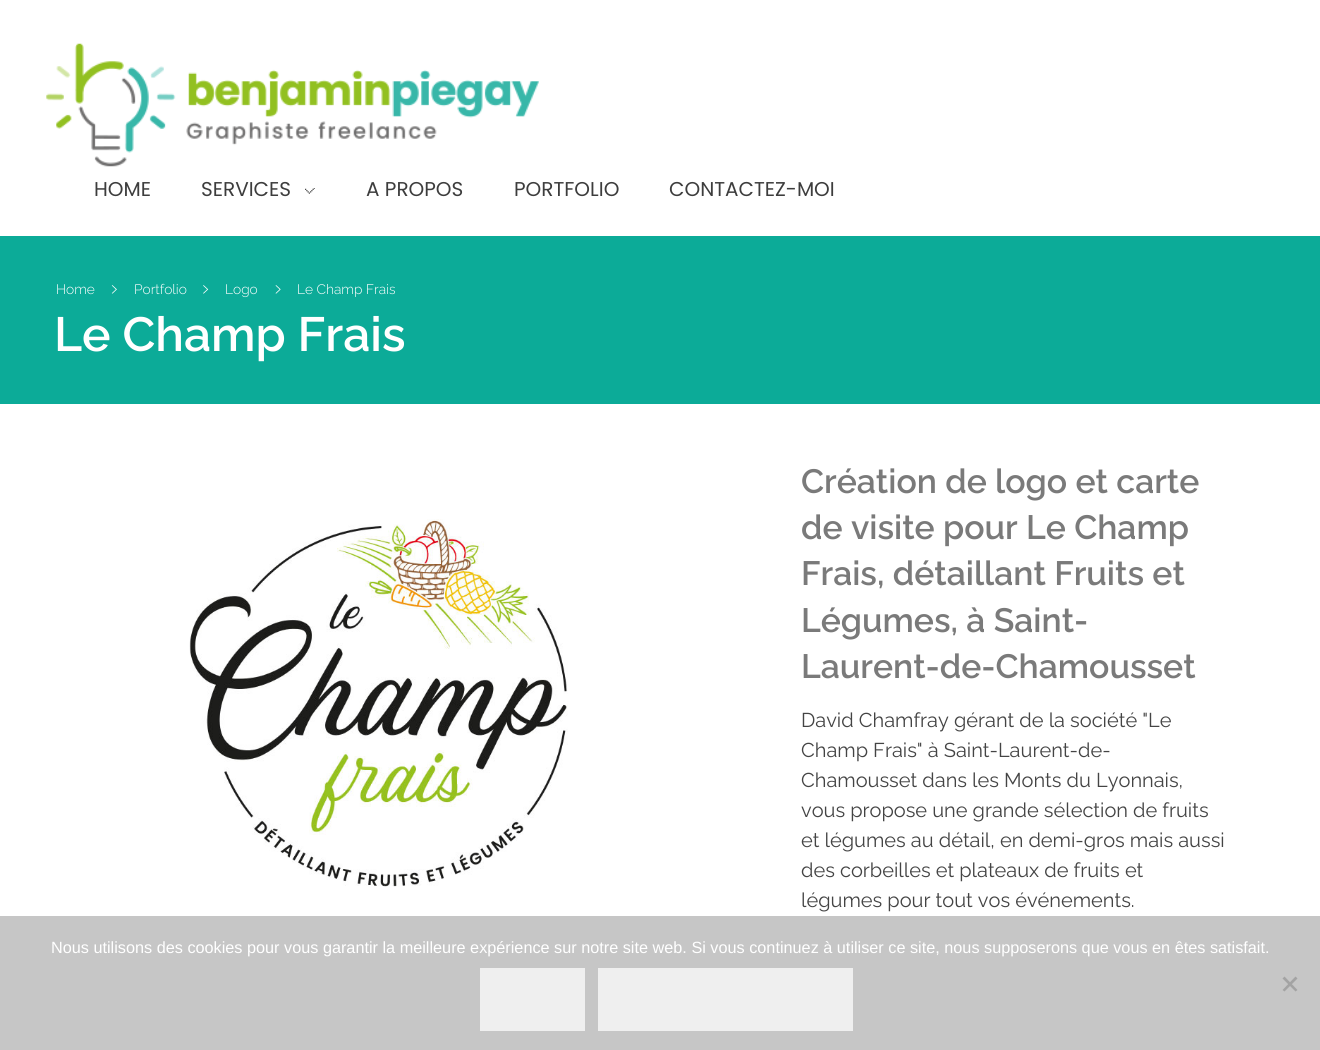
import math
import cairo



def draw_image(context, path, x, y, w, h):
    context.save()
    context.set_source_surface(cairo.ImageSurface.create_from_png(path), x, y)
    context.rectangle(x, y, w, h)
    context.fill()
    context.restore()


def draw(context):
    context.set_source_rgb(1, 1, 1)
    context.paint()
    draw_image(context, "images/1.png", 46, 43, 493, 124)
    draw_image(context, "images/2.png", 305, 188, 10, 6)
    context.set_source_rgb(12 / 255, 171 / 255, 152 / 255)
    context.rectangle(0, 236, 1320, 168)
    context.fill()
    draw_image(context, "images/3.png", 111, 285, 6, 9)
    draw_image(context, "images/4.png", 203, 285, 6, 9)
    draw_image(context, "images/5.png", 275, 285, 6, 9)
    draw_image(context, "images/6.png", 189, 519, 379, 368)
    context.set_source_rgb(198 / 255, 198 / 255, 198 / 255)
    context.rectangle(0, 916, 1320, 134)
    context.fill()
    context.set_source_rgb(239 / 255, 239 / 255, 239 / 255)
    context.rectangle(480, 968, 105, 63)
    context.fill()
    context.rectangle(598, 968, 255, 63)
    context.fill()
    context.set_source_rgb(163 / 255, 163 / 255, 163 / 255)
    context.new_path()
    context.move_to(1295.5, 976.5)
    context.line_to(1297.5, 978.5)
    context.line_to(1284.5, 991.5)
    context.line_to(1282.5, 990)
    context.close_path()
    context.fill()
    context.new_path()
    context.move_to(1282.5, 978.5)
    context.line_to(1284.5, 976.5)
    context.line_to(1297.5, 990)
    context.line_to(1295.5, 991.5)
    context.close_path()
    context.fill()
    context.select_font_face("Poppins")
    context.set_font_size(20)
    context.set_source_rgb(61 / 255, 61 / 255, 61 / 255)
    context.move_to(94, 196)
    context.show_text("HOME")
    context.move_to(201, 196)
    context.show_text("SERVICES")
    context.move_to(366, 196)
    context.show_text("A PROPOS")
    context.move_to(514, 196)
    context.show_text("PORTFOLIO")
    context.move_to(669, 196)
    context.show_text("CONTACTEZ-MOI")
    context.select_font_face("Raleway Light")
    context.set_font_size(13.75)
    context.set_source_rgb(1, 1, 1)
    context.move_to(56, 294)
    context.show_text("Home")
    context.move_to(134, 294)
    context.show_text("Portfolio")
    context.move_to(225, 294)
    context.show_text("Logo")
    context.move_to(297, 294)
    context.show_text("Le Champ Frais")
    context.select_font_face("Raleway SemiBold")
    context.set_font_size(48)
    context.move_to(54, 351)
    context.show_text("Le Champ Frais")
    context.set_font_size(33.75)
    context.set_source_rgb(122 / 255, 122 / 255, 122 / 255)
    context.move_to(801, 493)
    context.show_text("Création de logo et carte")
    context.move_to(801, 539)
    context.show_text("de visite pour Le Champ")
    context.move_to(801, 585)
    context.show_text("Frais, détaillant Fruits et")
    context.move_to(801, 632)
    context.show_text("Légumes, à Saint-")
    context.move_to(801, 678)
    context.show_text("Laurent-de-Chamousset")
    context.select_font_face("Raleway")
    context.set_font_size(20)
    context.set_source_rgb(68 / 255, 68 / 255, 68 / 255)
    context.move_to(801, 727)
    context.show_text("David Chamfray gérant de la société \"Le")
    context.move_to(801, 757)
    context.show_text("Champ Frais\" à Saint-Laurent-de-")
    context.move_to(801, 787)
    context.show_text("Chamousset dans les Monts du Lyonnais,")
    context.move_to(801, 817)
    context.show_text("vous propose une grande sélection de fruits")
    context.move_to(801, 847)
    context.show_text("et légumes au détail, en demi-gros mais aussi")
    context.move_to(801, 877)
    context.show_text("des corbeilles et plateaux de fruits et")
    context.move_to(801, 907)
    context.show_text("légumes pour tout vos événements.")
    context.select_font_face("Liberation Sans")
    context.set_font_size(16.25)
    context.set_source_rgb(1, 1, 1)
    context.move_to(51, 953)
    context.show_text("Nous utilisons des cookies pour vous garantir la meilleure expérience sur notre site web. Si vous continuez à utiliser ce site, nous supposerons que vous en êtes satisfait.")


surface = cairo.ImageSurface(cairo.Format.RGB24, 1320, 1050)
context = cairo.Context(surface)
options = cairo.FontOptions()
options.set_hint_metrics(cairo.HintMetrics.OFF)
options.set_hint_style(cairo.HintStyle.NONE)
context.set_font_options(options)
context.set_miter_limit(4)
draw(context)
surface.write_to_png("out.png")
